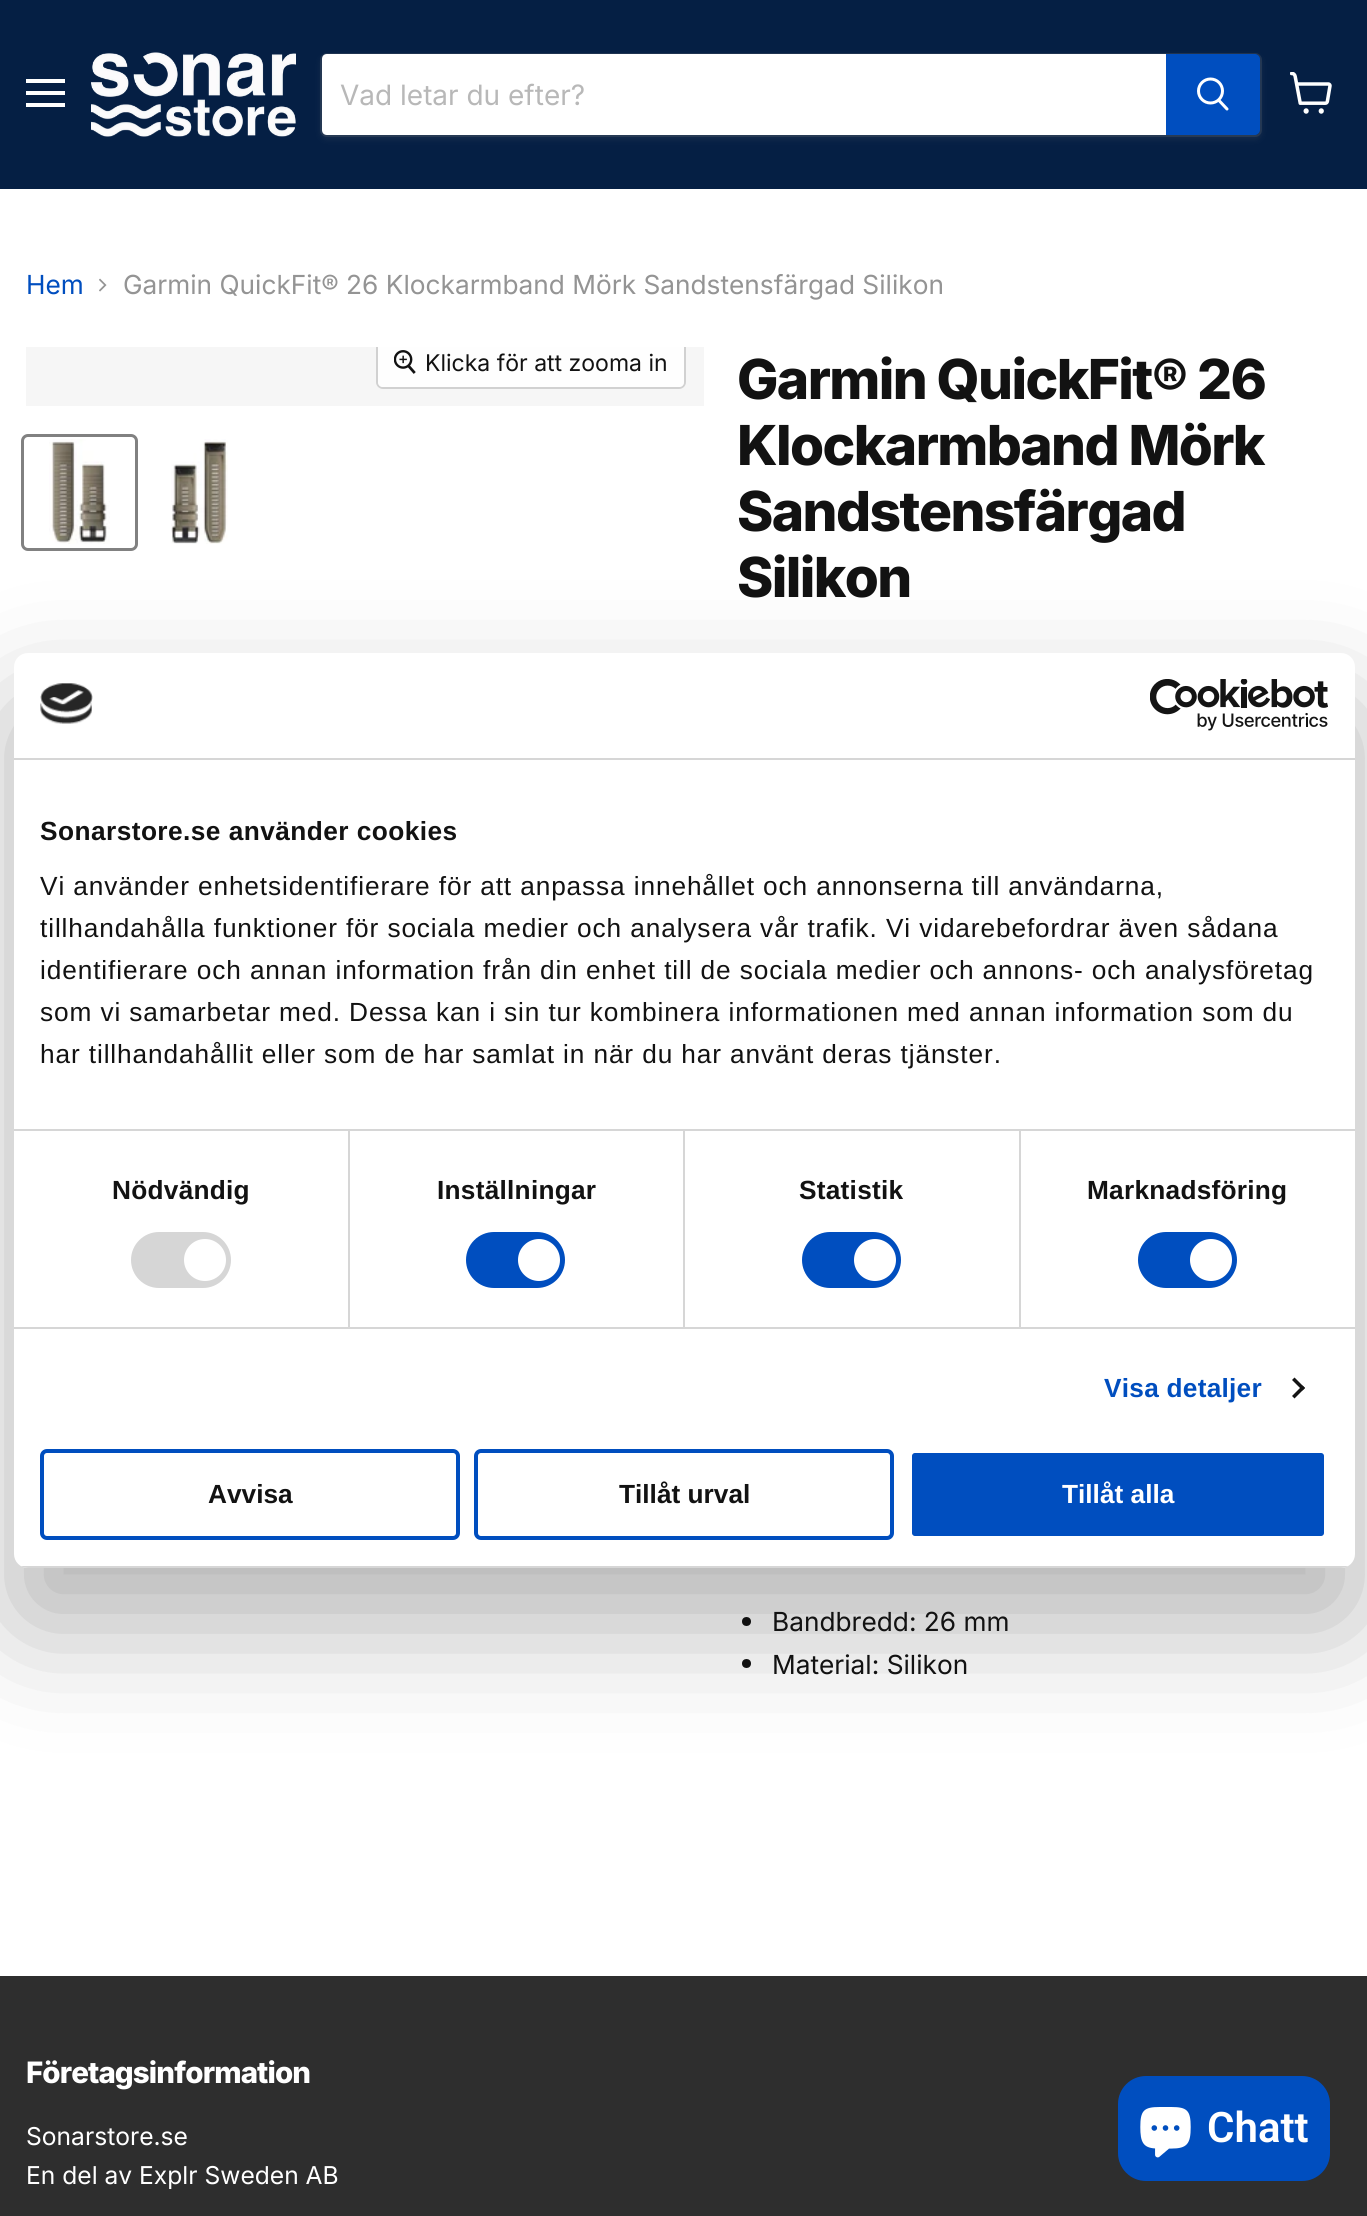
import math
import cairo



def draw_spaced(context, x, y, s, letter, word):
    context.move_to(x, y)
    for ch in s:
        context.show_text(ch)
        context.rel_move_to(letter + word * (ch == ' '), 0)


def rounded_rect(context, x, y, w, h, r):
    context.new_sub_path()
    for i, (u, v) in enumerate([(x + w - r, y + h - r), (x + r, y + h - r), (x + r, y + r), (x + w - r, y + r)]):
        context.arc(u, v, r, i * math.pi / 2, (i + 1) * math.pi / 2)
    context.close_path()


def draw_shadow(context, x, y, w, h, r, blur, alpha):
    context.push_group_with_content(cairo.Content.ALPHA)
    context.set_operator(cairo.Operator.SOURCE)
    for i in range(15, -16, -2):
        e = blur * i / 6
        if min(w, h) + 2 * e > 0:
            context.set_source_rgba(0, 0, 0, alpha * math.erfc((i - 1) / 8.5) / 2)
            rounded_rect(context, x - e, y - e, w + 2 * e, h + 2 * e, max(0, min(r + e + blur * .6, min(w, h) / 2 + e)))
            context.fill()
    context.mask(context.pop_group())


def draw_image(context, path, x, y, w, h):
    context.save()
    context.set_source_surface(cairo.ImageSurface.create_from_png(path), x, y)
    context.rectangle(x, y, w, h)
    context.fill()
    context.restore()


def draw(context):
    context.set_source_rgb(1, 1, 1)
    context.paint()
    context.set_source_rgb(5 / 255, 31 / 255, 68 / 255)
    context.rectangle(0, 0, 1367, 189)
    context.fill()
    context.set_source_rgb(1, 1, 1)
    context.rectangle(26, 79, 39, 4)
    context.fill()
    context.rectangle(26, 91, 39, 4)
    context.fill()
    context.rectangle(26, 103, 39, 4)
    context.fill()
    draw_image(context, "images/1.png", 91, 52, 205, 85)
    context.set_source_rgb(128 / 255, 128 / 255, 128 / 255)
    draw_shadow(context, 320, 56, 942, 84, 7, 2.5, 0.11)
    rounded_rect(context, 321, 54, 940, 82, 6)
    context.set_source_rgba(128 / 255, 128 / 255, 128 / 255, 0.2)
    context.stroke()
    context.set_source_rgb(1, 1, 1)
    context.new_path()
    context.move_to(327, 54)
    context.line_to(1166, 54)
    context.line_to(1166, 135)
    context.line_to(327, 135)
    context.curve_to(324, 135, 322, 133, 322, 130)
    context.line_to(322, 59)
    context.curve_to(322, 56, 324, 54, 327, 54)
    context.close_path()
    context.fill()
    context.set_source_rgb(0, 78 / 255, 191 / 255)
    context.new_path()
    context.move_to(1167, 55)
    context.line_to(1255, 55)
    context.curve_to(1257, 55, 1259, 57, 1259, 59)
    context.line_to(1259, 130)
    context.curve_to(1259, 132, 1257, 134, 1255, 134)
    context.line_to(1167, 134)
    context.close_path()
    context.fill_preserve()
    context.stroke()
    context.new_path()
    context.move_to(1227, 109)
    context.line_to(1219, 100.5)
    context.set_source_rgb(1, 1, 1)
    context.set_line_width(3)
    context.set_line_cap(cairo.LineCap.ROUND)
    context.stroke()
    context.arc(1210.5, 91, 12, 0, 2 * math.pi)
    context.set_line_cap(cairo.LineCap.BUTT)
    context.stroke()
    draw_image(context, "images/2.png", 1290, 72, 42, 42)
    draw_image(context, "images/3.png", 99, 278, 8, 14)
    context.set_source_rgb(246 / 255, 246 / 255, 246 / 255)
    context.rectangle(26, 347, 678, 59)
    context.fill()
    context.save()
    context.rectangle(26, 347, 678, 59)
    context.clip()
    rounded_rect(context, 377, 339, 308, 49, 6)
    context.set_source_rgb(209 / 255, 209 / 255, 209 / 255)
    context.set_line_width(2)
    context.stroke()
    context.restore()
    context.set_source_rgba(1, 1, 1, 0.9)
    context.new_path()
    context.move_to(378, 347)
    context.line_to(684, 347)
    context.line_to(684, 382)
    context.curve_to(684, 385, 682, 387, 679, 387)
    context.line_to(383, 387)
    context.curve_to(380, 387, 378, 385, 378, 382)
    context.close_path()
    context.fill()
    draw_image(context, "images/4.png", 394, 350, 22, 24)
    rounded_rect(context, 22.5, 435.5, 114, 114, 5.5)
    context.set_source_rgb(129 / 255, 129 / 255, 129 / 255)
    context.stroke()
    draw_image(context, "images/5.png", 49, 439, 61, 105)
    draw_image(context, "images/6.png", 171, 439, 57, 105)
    context.set_source_rgb(18 / 255, 18 / 255, 18 / 255)
    context.arc(746.5, 1621.5, 4.5, 0, 2 * math.pi)
    context.fill()
    context.arc(746.5, 1663.5, 4.5, 0, 2 * math.pi)
    context.fill()
    context.set_source_rgb(0, 0, 0)
    draw_shadow(context, 14, 709, 1341, 915, 14, 59.5, 0.3)
    context.set_source_rgb(1, 1, 1)
    rounded_rect(context, 14, 653, 1341, 915, 14)
    context.fill()
    context.set_source_rgb(214 / 255, 214 / 255, 214 / 255)
    context.rectangle(14, 758, 1341, 2)
    context.fill()
    draw_image(context, "images/7.png", 40, 683, 53, 41)
    draw_image(context, "images/8.png", 1150, 679, 178, 52)
    context.rectangle(14, 1129, 1341, 2)
    context.fill()
    context.rectangle(14, 1327, 1341, 2)
    context.fill()
    context.rectangle(348, 1131, 2, 196)
    context.fill()
    rounded_rect(context, 131, 1232, 100, 56, 28)
    context.fill()
    context.set_source_rgb(1, 1, 1)
    context.arc(205, 1260, 21, 0, 2 * math.pi)
    context.fill()
    context.set_source_rgb(214 / 255, 214 / 255, 214 / 255)
    context.rectangle(683, 1131, 2, 196)
    context.fill()
    context.set_source_rgb(0, 78 / 255, 191 / 255)
    rounded_rect(context, 466, 1232, 99, 56, 28)
    context.fill()
    context.set_source_rgb(1, 1, 1)
    context.arc(539, 1260, 21, 0, 2 * math.pi)
    context.fill()
    context.set_source_rgb(214 / 255, 214 / 255, 214 / 255)
    context.rectangle(1019, 1131, 2, 196)
    context.fill()
    context.set_source_rgb(0, 78 / 255, 191 / 255)
    rounded_rect(context, 802, 1232, 99, 56, 28)
    context.fill()
    context.set_source_rgb(1, 1, 1)
    context.arc(875, 1260, 21, 0, 2 * math.pi)
    context.fill()
    context.set_source_rgb(0, 78 / 255, 191 / 255)
    rounded_rect(context, 1138, 1232, 99, 56, 28)
    context.fill()
    context.set_source_rgb(1, 1, 1)
    context.arc(1211, 1260, 21, 0, 2 * math.pi)
    context.fill()
    context.set_source_rgb(20 / 255, 20 / 255, 20 / 255)
    context.new_path()
    context.move_to(1294.5, 1377.5)
    context.line_to(1305, 1388)
    context.line_to(1302.5, 1390.5)
    context.line_to(1292, 1380)
    context.close_path()
    context.fill()
    context.new_path()
    context.move_to(1302.5, 1385.5)
    context.line_to(1305, 1388)
    context.line_to(1294.5, 1398.5)
    context.line_to(1292, 1396)
    context.close_path()
    context.fill()
    context.save()
    rounded_rect(context, 14, 653, 1341, 915, 14)
    context.clip()
    context.set_source_rgb(214 / 255, 214 / 255, 214 / 255)
    context.rectangle(14, 1566, 1341, 2)
    context.fill()
    context.restore()
    rounded_rect(context, 42, 1451, 416, 87, 5)
    context.set_source_rgb(0, 78 / 255, 191 / 255)
    context.set_line_width(4)
    context.stroke()
    rounded_rect(context, 476, 1451, 416, 87, 5)
    context.stroke()
    rounded_rect(context, 910, 1451, 416, 87, 5)
    context.fill_preserve()
    context.set_source_rgb(1, 1, 1)
    context.stroke()
    context.set_source_rgb(46 / 255, 46 / 255, 46 / 255)
    context.rectangle(0, 1976, 1367, 240)
    context.fill()
    context.set_source_rgb(0, 78 / 255, 191 / 255)
    rounded_rect(context, 1118, 2076, 212, 105, 28)
    context.fill()
    draw_image(context, "images/9.png", 1140, 2107, 51, 51)
    context.select_font_face("Inter")
    context.set_font_size(28)
    context.set_source_rgb(184 / 255, 184 / 255, 184 / 255)
    context.move_to(340, 105)
    context.show_text("Vad letar du efter?")
    context.set_font_size(26.25)
    context.set_source_rgb(0, 78 / 255, 191 / 255)
    context.move_to(26, 294)
    context.show_text("Hem")
    context.set_source_rgb(148 / 255, 148 / 255, 148 / 255)
    context.move_to(123, 294)
    context.show_text("Garmin QuickFit® 26 Klockarmband Mörk Sandstensfärgad Silikon")
    context.set_font_size(23)
    context.set_source_rgb(18 / 255, 18 / 255, 18 / 255)
    context.move_to(425, 371)
    context.show_text("Klicka för att zooma in")
    context.select_font_face("Inter ExtraBold")
    context.set_font_size(55.1)
    draw_spaced(context, 737, 399, "Garmin QuickFit® 26", -1.6, 0)
    draw_spaced(context, 737, 465, "Klockarmband Mörk", -1.6, 0)
    draw_spaced(context, 737, 531, "Sandstensfärgad", -1.6, 0)
    draw_spaced(context, 737, 597, "Silikon", -1.6, 0)
    context.select_font_face("Inter")
    context.set_font_size(26.25)
    context.move_to(772, 1631)
    context.show_text("Bandbredd: 26 mm")
    context.move_to(772, 1674)
    context.show_text("Material: Silikon")
    context.select_font_face("Liberation Sans", cairo.FontSlant.NORMAL, cairo.FontWeight.BOLD)
    draw_spaced(context, 40, 840, "Sonarstore.se använder cookies", 0.45, 0)
    context.select_font_face("Liberation Sans")
    draw_spaced(context, 40, 895, "Vi använder enhetsidentifierare för att anpassa innehållet och annonserna till användarna,", 0.88, 0)
    draw_spaced(context, 40, 937, "tillhandahålla funktioner för sociala medier och analysera vår trafik. Vi vidarebefordrar även sådana", 0.88, 0)
    draw_spaced(context, 40, 979, "identifierare och annan information från din enhet till de sociala medier och annons- och analysföretag", 0.88, 0)
    draw_spaced(context, 40, 1021, "som vi samarbetar med. Dessa kan i sin tur kombinera informationen med annan information som du", 0.88, 0)
    draw_spaced(context, 40, 1063, "har tillhandahållit eller som de har samlat in när du har använt deras tjänster.", 0.88, 0)
    context.select_font_face("Liberation Sans", cairo.FontSlant.NORMAL, cairo.FontWeight.BOLD)
    draw_spaced(context, 112, 1199, "Nödvändig", 0.25, 0)
    draw_spaced(context, 437, 1199, "Inställningar", 0.25, 0)
    draw_spaced(context, 799, 1199, "Statistik", 0.25, 0)
    draw_spaced(context, 1087, 1199, "Marknadsföring", 0.25, 0)
    context.set_source_rgb(0, 78 / 255, 191 / 255)
    draw_spaced(context, 1104, 1397, "Visa detaljer", 0.25, 0)
    context.set_source_rgb(18 / 255, 18 / 255, 18 / 255)
    context.move_to(208, 1503)
    context.show_text("Avvisa")
    context.move_to(619, 1503)
    context.show_text("Tillåt urval")
    context.set_source_rgb(1, 1, 1)
    context.move_to(1062, 1503)
    context.show_text("Tillåt alla")
    context.select_font_face("Inter ExtraBold")
    context.set_font_size(29.5)
    draw_spaced(context, 26, 2083, "Företagsinformation", -0.9, 0)
    context.select_font_face("Inter")
    context.set_font_size(24.6)
    context.move_to(26, 2145)
    context.show_text("Sonarstore.se")
    context.move_to(26, 2184)
    context.show_text("En del av Explr Sweden AB")
    context.select_font_face("Roboto SemiBold")
    context.set_font_size(42)
    context.move_to(1207, 2142)
    context.show_text("Chatt")


surface = cairo.ImageSurface(cairo.Format.RGB24, 1367, 2216)
context = cairo.Context(surface)
options = cairo.FontOptions()
options.set_hint_metrics(cairo.HintMetrics.OFF)
options.set_hint_style(cairo.HintStyle.NONE)
context.set_font_options(options)
context.set_miter_limit(4)
draw(context)
surface.write_to_png("out.png")
